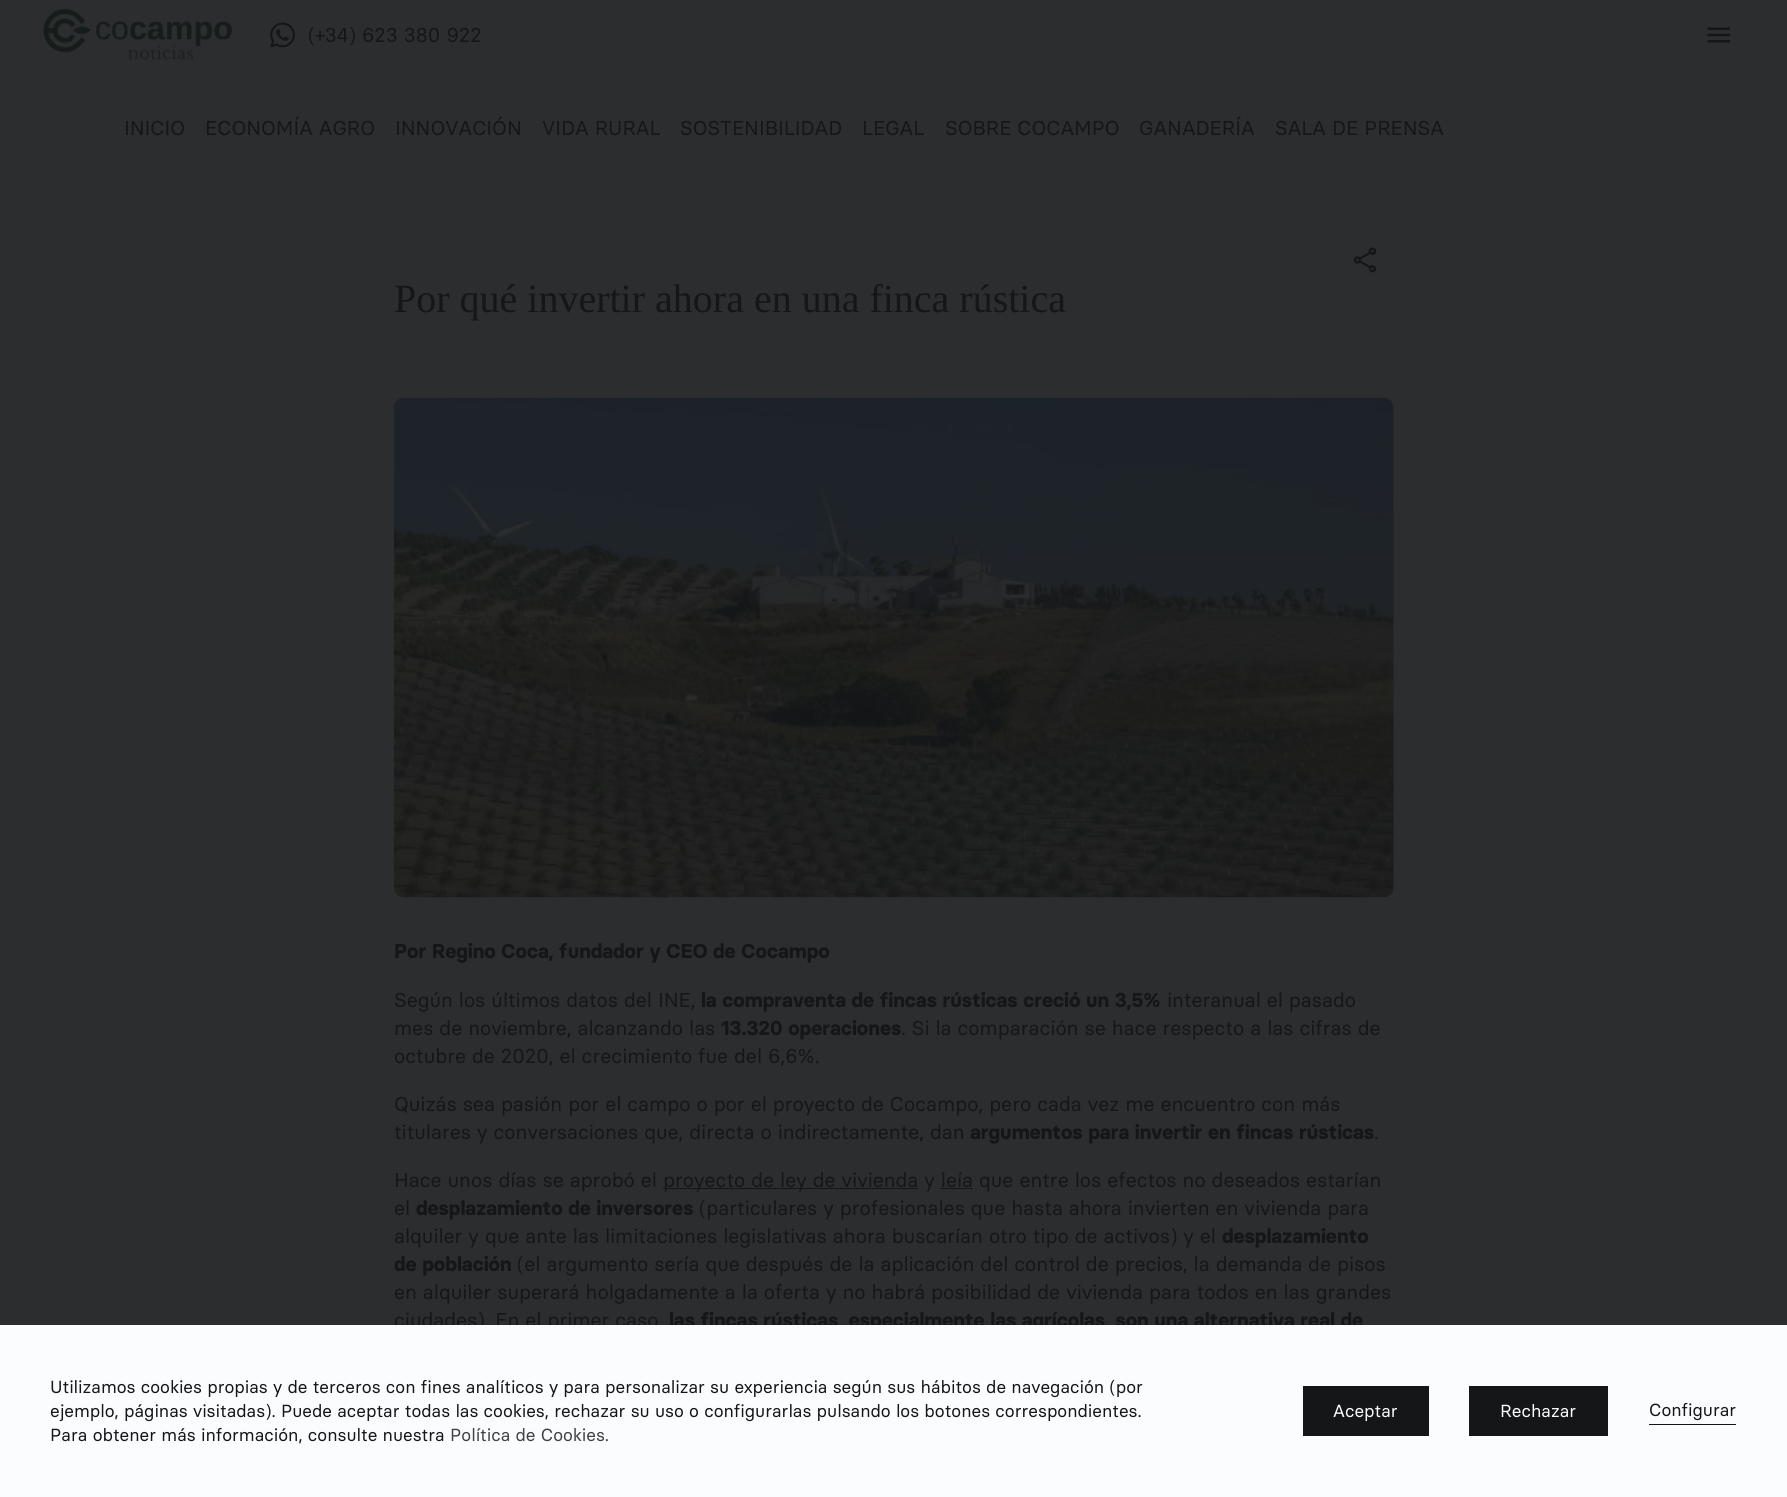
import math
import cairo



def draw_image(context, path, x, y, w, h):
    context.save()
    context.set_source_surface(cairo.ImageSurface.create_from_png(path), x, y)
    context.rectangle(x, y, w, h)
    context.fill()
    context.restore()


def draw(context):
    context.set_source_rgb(43 / 255, 45 / 255, 47 / 255)
    context.paint()
    draw_image(context, "images/1.png", 43, 8, 189, 52)
    draw_image(context, "images/2.png", 270, 22, 25, 26)
    draw_image(context, "images/3.png", 1707, 27, 23, 16)
    draw_image(context, "images/4.png", 1353, 247, 24, 26)
    draw_image(context, "images/5.png", 393, 397, 1001, 501)
    context.set_source_rgb(20 / 255, 22 / 255, 24 / 255)
    context.rectangle(663, 1188, 255, 1)
    context.fill()
    context.rectangle(940, 1188, 33, 1)
    context.fill()
    context.select_font_face("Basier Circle")
    context.set_font_size(20)
    context.move_to(308, 42)
    context.show_text("(+34) 623 380 922")
    context.move_to(124, 135)
    context.show_text("INICIO")
    context.move_to(205, 135)
    context.show_text("ECONOMÍA AGRO")
    context.move_to(395, 135)
    context.show_text("INNOVACIÓN")
    context.move_to(542, 135)
    context.show_text("VIDA RURAL")
    context.move_to(680, 135)
    context.show_text("SOSTENIBILIDAD")
    context.move_to(862, 135)
    context.show_text("LEGAL")
    context.move_to(945, 135)
    context.show_text("SOBRE COCAMPO")
    context.move_to(1139, 135)
    context.show_text("GANADERÍA")
    context.move_to(1275, 135)
    context.show_text("SALA DE PRENSA")
    context.select_font_face("Liberation Serif")
    context.set_font_size(40)
    context.move_to(394, 312)
    context.show_text("Por qué invertir ahora en una finca rústica")
    context.select_font_face("Basier Circle", cairo.FontSlant.NORMAL, cairo.FontWeight.BOLD)
    context.set_font_size(20)
    context.move_to(394, 958)
    context.show_text("Por Regino Coca, fundador y CEO de Cocampo")
    context.select_font_face("Basier Circle")
    context.move_to(394, 1007)
    context.show_text("Según los últimos datos del INE,")
    context.select_font_face("Basier Circle", cairo.FontSlant.NORMAL, cairo.FontWeight.BOLD)
    context.move_to(701, 1007)
    context.show_text("la compraventa de fincas rústicas creció un 3,5%")
    context.select_font_face("Basier Circle")
    context.move_to(1167, 1007)
    context.show_text("interanual el pasado")
    context.move_to(394, 1035)
    context.show_text("mes de noviembre, alcanzando las")
    context.select_font_face("Basier Circle", cairo.FontSlant.NORMAL, cairo.FontWeight.BOLD)
    context.move_to(721, 1035)
    context.show_text("13.320 operaciones")
    context.select_font_face("Basier Circle")
    context.move_to(901, 1035)
    context.show_text(". Si la comparación se hace respecto a las cifras de")
    context.move_to(394, 1063)
    context.show_text("octubre de 2020, el crecimiento fue del 6,6%.")
    context.move_to(394, 1111)
    context.show_text("Quizás sea pasión por el campo o por el proyecto de Cocampo, pero cada vez me encuentro con más")
    context.move_to(394, 1139)
    context.show_text("titulares y conversaciones que, directa o indirectamente, dan")
    context.select_font_face("Basier Circle", cairo.FontSlant.NORMAL, cairo.FontWeight.BOLD)
    context.move_to(970, 1139)
    context.show_text("argumentos para invertir en fincas rústicas")
    context.select_font_face("Basier Circle")
    context.move_to(1374, 1139)
    context.show_text(".")
    context.move_to(394, 1187)
    context.show_text("Hace unos días se aprobó el")
    context.move_to(663, 1187)
    context.show_text("proyecto de ley de vivienda y leía que entre los efectos no deseados estarían")
    context.move_to(394, 1215)
    context.show_text("el")
    context.select_font_face("Basier Circle", cairo.FontSlant.NORMAL, cairo.FontWeight.BOLD)
    context.move_to(416, 1215)
    context.show_text("desplazamiento de inversores")
    context.select_font_face("Basier Circle")
    context.move_to(699, 1215)
    context.show_text("(particulares y profesionales que hasta ahora invierten en vivienda para")
    context.move_to(394, 1243)
    context.show_text("alquiler y que ante las limitaciones legislativas ahora buscarían otro tipo de activos) y el")
    context.select_font_face("Basier Circle", cairo.FontSlant.NORMAL, cairo.FontWeight.BOLD)
    context.move_to(1222, 1243)
    context.show_text("desplazamiento")
    context.move_to(394, 1271)
    context.show_text("de población")
    context.select_font_face("Basier Circle")
    context.move_to(517, 1271)
    context.show_text("(el argumento sería que después de la aplicación del control de precios, la demanda de pisos")
    context.move_to(394, 1299)
    context.show_text("en alquiler superará holgadamente a la oferta y no habrá posibilidad de vivienda para todos en las grandes")
    context.move_to(394, 1327)
    context.show_text("ciudades). En el primer caso")
    context.select_font_face("Basier Circle", cairo.FontSlant.NORMAL, cairo.FontWeight.BOLD)
    context.move_to(669, 1327)
    context.show_text("las fincas rústicas, especialmente las agrícolas, son una alternativa real de")
    context.set_source_rgb(251 / 255, 252 / 255, 254 / 255)
    context.rectangle(0, 1325, 1787, 172)
    context.fill()
    context.select_font_face("Basier Circle")
    context.set_font_size(17.5)
    context.set_source_rgb(20 / 255, 22 / 255, 24 / 255)
    context.move_to(50, 1393)
    context.show_text("Utilizamos cookies propias y de terceros con fines analíticos y para personalizar su experiencia según sus hábitos de navegación (por")
    context.move_to(50, 1417)
    context.show_text("ejemplo, páginas visitadas). Puede aceptar todas las cookies, rechazar su uso o configurarlas pulsando los botones correspondientes.")
    context.move_to(50, 1441)
    context.show_text("Para obtener más información, consulte nuestra")
    context.set_source_rgb(64 / 255, 65 / 255, 66 / 255)
    context.move_to(450, 1441)
    context.show_text("Política de Cookies.")
    context.set_source_rgb(20 / 255, 22 / 255, 24 / 255)
    context.rectangle(1303, 1386, 126, 50)
    context.fill()
    context.set_source_rgb(251 / 255, 252 / 255, 254 / 255)
    context.move_to(1333, 1417)
    context.show_text("Aceptar")
    context.set_source_rgb(20 / 255, 22 / 255, 24 / 255)
    context.rectangle(1469, 1386, 139, 50)
    context.fill()
    context.set_source_rgb(251 / 255, 252 / 255, 254 / 255)
    context.move_to(1500, 1417)
    context.show_text("Rechazar")
    context.set_source_rgb(20 / 255, 22 / 255, 24 / 255)
    context.rectangle(1649, 1424, 87, 1)
    context.fill()
    context.move_to(1649, 1416)
    context.show_text("Configurar")


surface = cairo.ImageSurface(cairo.Format.RGB24, 1787, 1497)
context = cairo.Context(surface)
options = cairo.FontOptions()
options.set_hint_metrics(cairo.HintMetrics.OFF)
options.set_hint_style(cairo.HintStyle.NONE)
context.set_font_options(options)
context.set_miter_limit(4)
draw(context)
surface.write_to_png("out.png")
